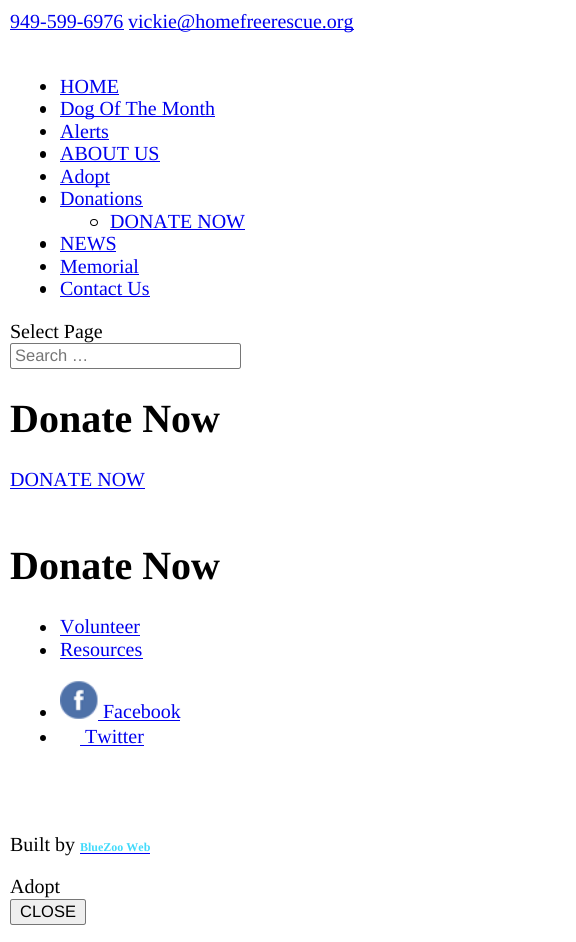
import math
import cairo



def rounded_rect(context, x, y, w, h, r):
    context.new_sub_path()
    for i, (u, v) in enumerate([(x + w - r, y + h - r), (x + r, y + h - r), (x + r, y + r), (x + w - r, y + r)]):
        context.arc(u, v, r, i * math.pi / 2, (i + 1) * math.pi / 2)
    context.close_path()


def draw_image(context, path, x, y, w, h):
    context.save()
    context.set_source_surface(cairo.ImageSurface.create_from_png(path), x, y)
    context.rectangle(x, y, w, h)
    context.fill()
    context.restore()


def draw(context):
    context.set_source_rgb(1, 1, 1)
    context.paint()
    context.set_source_rgb(0, 0, 238 / 255)
    context.rectangle(10, 29, 114, 1)
    context.fill()
    context.rectangle(129, 29, 225, 1)
    context.fill()
    context.set_source_rgb(0, 0, 0)
    context.arc(43, 87, 3, 0, 2 * math.pi)
    context.fill()
    context.set_source_rgb(0, 0, 238 / 255)
    context.rectangle(60, 94, 59, 1)
    context.fill()
    context.set_source_rgb(0, 0, 0)
    rounded_rect(context, 40, 106, 6, 7, 3)
    context.fill()
    context.set_source_rgb(0, 0, 238 / 255)
    context.rectangle(60, 116, 155, 1)
    context.fill()
    context.set_source_rgb(0, 0, 0)
    context.arc(43, 132, 3, 0, 2 * math.pi)
    context.fill()
    context.set_source_rgb(0, 0, 238 / 255)
    context.rectangle(60, 139, 49, 1)
    context.fill()
    context.set_source_rgb(0, 0, 0)
    rounded_rect(context, 40, 151, 6, 7, 3)
    context.fill()
    context.set_source_rgb(0, 0, 238 / 255)
    context.rectangle(60, 161, 100, 1)
    context.fill()
    context.set_source_rgb(0, 0, 0)
    context.arc(43, 177, 3, 0, 2 * math.pi)
    context.fill()
    context.set_source_rgb(0, 0, 238 / 255)
    context.rectangle(60, 184, 50, 1)
    context.fill()
    context.set_source_rgb(0, 0, 0)
    rounded_rect(context, 40, 196, 6, 7, 3)
    context.fill()
    context.set_source_rgb(0, 0, 238 / 255)
    context.rectangle(60, 206, 83, 1)
    context.fill()
    rounded_rect(context, 90.5, 219.5, 7, 6, 3)
    context.set_source_rgb(0, 0, 0)
    context.set_line_width(1)
    context.stroke()
    context.set_source_rgb(0, 0, 238 / 255)
    context.rectangle(110, 229, 135, 1)
    context.fill()
    context.set_source_rgb(0, 0, 0)
    rounded_rect(context, 40, 241, 6, 7, 3)
    context.fill()
    context.set_source_rgb(0, 0, 238 / 255)
    context.rectangle(60, 251, 56, 1)
    context.fill()
    context.set_source_rgb(0, 0, 0)
    context.arc(43, 267, 3, 0, 2 * math.pi)
    context.fill()
    context.set_source_rgb(0, 0, 238 / 255)
    context.rectangle(60, 274, 79, 1)
    context.fill()
    context.set_source_rgb(0, 0, 0)
    rounded_rect(context, 40, 286, 6, 7, 3)
    context.fill()
    context.set_source_rgb(0, 0, 238 / 255)
    context.rectangle(60, 296, 90, 1)
    context.fill()
    rounded_rect(context, 10.5, 343.5, 230, 25, 2)
    context.set_source_rgb(118 / 255, 118 / 255, 118 / 255)
    context.stroke()
    context.set_source_rgb(0, 0, 238 / 255)
    context.rectangle(10, 488, 135, 1)
    context.fill()
    context.set_source_rgb(0, 0, 0)
    context.arc(43, 628, 3, 0, 2 * math.pi)
    context.fill()
    context.set_source_rgb(0, 0, 238 / 255)
    context.rectangle(60, 635, 80, 1)
    context.fill()
    context.set_source_rgb(0, 0, 0)
    context.arc(43, 651, 3, 0, 2 * math.pi)
    context.fill()
    context.set_source_rgb(0, 0, 238 / 255)
    context.rectangle(60, 658, 83, 1)
    context.fill()
    context.set_source_rgb(0, 0, 0)
    context.arc(43, 713, 3, 0, 2 * math.pi)
    context.fill()
    draw_image(context, "images/1.png", 60, 681, 38, 38)
    context.set_source_rgb(0, 0, 238 / 255)
    context.rectangle(98, 720, 82, 1)
    context.fill()
    context.set_source_rgb(0, 0, 0)
    context.arc(43, 738, 3, 0, 2 * math.pi)
    context.fill()
    context.set_source_rgb(0, 0, 238 / 255)
    context.rectangle(80, 745, 64, 1)
    context.fill()
    context.rectangle(80, 853, 70, 1)
    context.fill()
    context.set_source_rgb(239 / 255, 239 / 255, 239 / 255)
    rounded_rect(context, 10.5, 899.5, 75, 25, 2)
    context.fill_preserve()
    context.set_source_rgb(118 / 255, 118 / 255, 118 / 255)
    context.stroke()
    context.select_font_face("Liberation Serif")
    context.set_font_size(20)
    context.set_source_rgb(0, 0, 238 / 255)
    context.move_to(10, 28)
    context.show_text("949-599-6976")
    context.move_to(128, 28)
    context.show_text("vickie@homefreerescue.org")
    context.move_to(60, 93)
    context.show_text("HOME")
    context.move_to(60, 115)
    context.show_text("Dog Of The Month")
    context.move_to(60, 138)
    context.show_text("Alerts")
    context.move_to(60, 160)
    context.show_text("ABOUT US")
    context.move_to(60, 183)
    context.show_text("Adopt")
    context.move_to(60, 205)
    context.show_text("Donations")
    context.move_to(110, 228)
    context.show_text("DONATE NOW")
    context.move_to(60, 250)
    context.show_text("NEWS")
    context.move_to(60, 273)
    context.show_text("Memorial")
    context.move_to(60, 295)
    context.show_text("Contact Us")
    context.set_source_rgb(0, 0, 0)
    context.move_to(10, 338)
    context.show_text("Select Page")
    context.select_font_face("Liberation Sans")
    context.set_font_size(16.5)
    context.set_source_rgb(117 / 255, 117 / 255, 117 / 255)
    context.move_to(15, 361)
    context.show_text("Search …")
    context.select_font_face("Liberation Serif", cairo.FontSlant.NORMAL, cairo.FontWeight.BOLD)
    context.set_font_size(40)
    context.set_source_rgb(0, 0, 0)
    context.move_to(10, 432)
    context.show_text("Donate Now")
    context.select_font_face("Liberation Serif")
    context.set_font_size(20)
    context.set_source_rgb(0, 0, 238 / 255)
    context.move_to(10, 486)
    context.show_text("DONATE NOW")
    context.select_font_face("Liberation Serif", cairo.FontSlant.NORMAL, cairo.FontWeight.BOLD)
    context.set_font_size(40)
    context.set_source_rgb(0, 0, 0)
    context.move_to(10, 579)
    context.show_text("Donate Now")
    context.select_font_face("Liberation Serif")
    context.set_font_size(20)
    context.set_source_rgb(0, 0, 238 / 255)
    context.move_to(60, 633)
    context.show_text("Volunteer")
    context.move_to(60, 656)
    context.show_text("Resources")
    context.move_to(103, 718)
    context.show_text("Facebook")
    context.move_to(85, 743)
    context.show_text("Twitter")
    context.set_source_rgb(0, 0, 0)
    context.move_to(10, 851)
    context.show_text("Built by")
    context.select_font_face("Liberation Serif", cairo.FontSlant.NORMAL, cairo.FontWeight.BOLD)
    context.set_font_size(12)
    context.set_source_rgb(66 / 255, 218 / 255, 251 / 255)
    context.move_to(80, 851)
    context.show_text("BlueZoo Web")
    context.select_font_face("Liberation Serif")
    context.set_font_size(20)
    context.set_source_rgb(0, 0, 0)
    context.move_to(10, 893)
    context.show_text("Adopt")
    context.select_font_face("Liberation Sans")
    context.set_font_size(16.5)
    context.move_to(20, 917)
    context.show_text("CLOSE")


surface = cairo.ImageSurface(cairo.Format.RGB24, 576, 942)
context = cairo.Context(surface)
options = cairo.FontOptions()
options.set_hint_metrics(cairo.HintMetrics.OFF)
options.set_hint_style(cairo.HintStyle.NONE)
context.set_font_options(options)
context.set_miter_limit(4)
draw(context)
surface.write_to_png("out.png")
